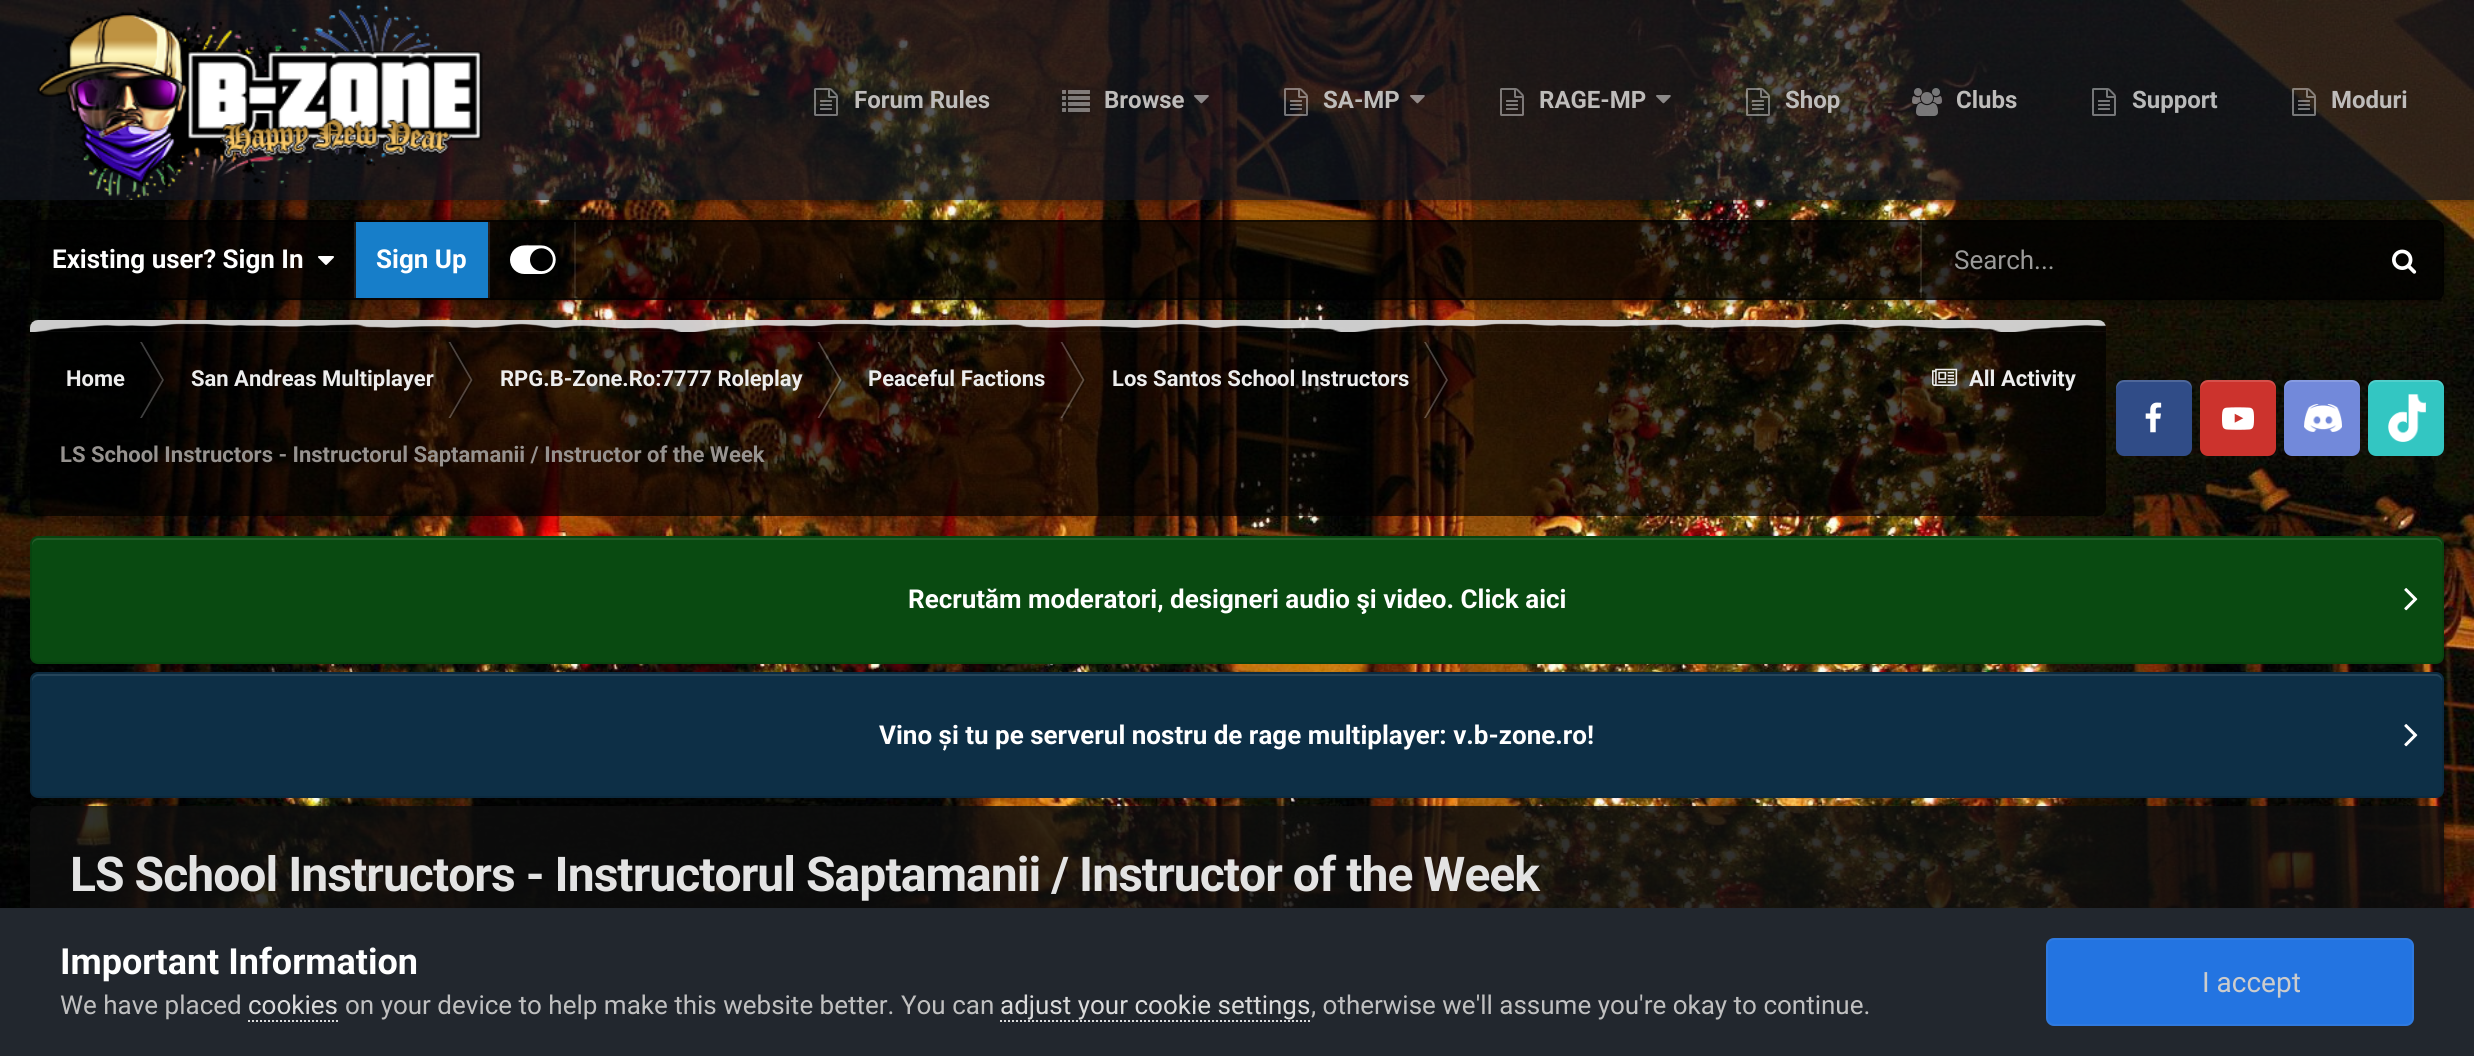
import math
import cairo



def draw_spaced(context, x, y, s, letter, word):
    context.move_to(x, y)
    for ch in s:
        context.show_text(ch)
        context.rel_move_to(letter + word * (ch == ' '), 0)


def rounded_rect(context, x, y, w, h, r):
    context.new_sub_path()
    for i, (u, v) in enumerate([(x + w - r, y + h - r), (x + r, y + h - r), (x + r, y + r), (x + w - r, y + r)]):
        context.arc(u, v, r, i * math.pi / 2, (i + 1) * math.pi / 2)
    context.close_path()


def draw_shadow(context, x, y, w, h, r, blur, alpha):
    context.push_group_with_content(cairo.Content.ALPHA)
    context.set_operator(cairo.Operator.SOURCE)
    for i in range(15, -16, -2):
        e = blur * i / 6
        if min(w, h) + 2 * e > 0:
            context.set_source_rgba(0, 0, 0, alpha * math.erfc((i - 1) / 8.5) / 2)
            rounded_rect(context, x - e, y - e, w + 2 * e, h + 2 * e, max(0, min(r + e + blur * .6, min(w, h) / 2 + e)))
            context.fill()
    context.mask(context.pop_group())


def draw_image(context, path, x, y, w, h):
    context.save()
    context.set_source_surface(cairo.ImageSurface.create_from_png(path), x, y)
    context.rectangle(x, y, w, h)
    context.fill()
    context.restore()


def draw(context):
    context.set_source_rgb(1, 1, 1)
    context.paint()
    draw_image(context, "images/1.png", 0, 0, 2474, 908)
    context.set_source_rgba(0, 0, 0, 0.1)
    context.rectangle(178, 200, 2296, 2)
    context.fill()
    context.save()
    context.rectangle(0, 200, 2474, 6)
    context.clip()
    context.set_source_rgb(0, 0, 0)
    draw_shadow(context, 0, 2, 2474, 200, 0, 4, 0.15)
    context.restore()
    context.set_source_rgba(18 / 255, 22 / 255, 30 / 255, 0.72)
    context.rectangle(0, 0, 2474, 200)
    context.fill()
    draw_image(context, "images/2.png", 37, 5, 446, 195)
    draw_image(context, "images/3.png", 814, 88, 24, 28)
    draw_image(context, "images/4.png", 1062, 90, 28, 22)
    draw_image(context, "images/5.png", 1194, 95, 15, 9)
    draw_image(context, "images/6.png", 1284, 88, 24, 28)
    draw_image(context, "images/7.png", 1410, 95, 15, 9)
    draw_image(context, "images/8.png", 1500, 88, 24, 28)
    draw_image(context, "images/9.png", 1656, 95, 15, 9)
    draw_image(context, "images/10.png", 1746, 88, 24, 28)
    draw_image(context, "images/11.png", 1912, 88, 30, 28)
    draw_image(context, "images/12.png", 2092, 88, 24, 28)
    draw_image(context, "images/13.png", 2292, 88, 24, 28)
    context.save()
    context.set_fill_rule(cairo.FillRule.EVEN_ODD)
    context.new_path()
    context.move_to(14, 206)
    context.line_to(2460, 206)
    context.line_to(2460, 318)
    context.line_to(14, 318)
    context.close_path()
    context.move_to(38, 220)
    context.line_to(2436, 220)
    context.curve_to(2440.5, 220, 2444, 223.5, 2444, 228)
    context.line_to(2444, 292)
    context.curve_to(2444, 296.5, 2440.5, 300, 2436, 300)
    context.line_to(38, 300)
    context.curve_to(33.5, 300, 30, 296.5, 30, 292)
    context.line_to(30, 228)
    context.curve_to(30, 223.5, 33.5, 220, 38, 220)
    context.close_path()
    context.clip()
    context.set_source_rgb(0, 0, 0)
    draw_shadow(context, 30, 222, 2414, 80, 8, 5, 0.4)
    context.restore()
    context.set_source_rgba(0, 0, 0, 0.75)
    rounded_rect(context, 30, 220, 2414, 80, 8)
    context.fill()
    rounded_rect(context, 31, 221, 2412, 78, 7)
    context.set_source_rgba(0, 0, 0, 0.5)
    context.stroke()
    context.set_source_rgba(1, 1, 1, 0.1)
    context.rectangle(354, 222, 2, 76)
    context.fill()
    draw_image(context, "images/14.png", 318, 256, 16, 9)
    context.rectangle(488, 222, 2, 76)
    context.fill()
    context.set_source_rgb(23 / 255, 126 / 255, 201 / 255)
    context.rectangle(356, 222, 132, 76)
    context.fill()
    context.set_source_rgba(1, 1, 1, 0.1)
    context.rectangle(574, 222, 2, 76)
    context.fill()
    draw_image(context, "images/15.png", 510, 245, 46, 29)
    context.rectangle(1920, 222, 2, 76)
    context.fill()
    context.set_source_rgba(0, 0, 0, 0.3)
    context.new_path()
    context.move_to(1922, 222)
    context.line_to(2434, 222)
    context.curve_to(2438.5, 222, 2442, 225.5, 2442, 230)
    context.line_to(2442, 290)
    context.curve_to(2442, 294.5, 2438.5, 298, 2434, 298)
    context.line_to(1922, 298)
    context.close_path()
    context.fill()
    draw_image(context, "images/16.png", 2392, 249, 25, 25)
    context.set_source_rgba(0, 0, 0, 0.7)
    rounded_rect(context, 30, 320, 2076, 196, 8)
    context.fill()
    draw_image(context, "images/17.png", 30, 320, 2076, 12)
    context.set_source_rgba(1, 1, 1, 0.25)
    context.new_path()
    context.move_to(140, 342)
    context.line_to(142, 342)
    context.line_to(164, 380)
    context.line_to(162, 380)
    context.close_path()
    context.fill()
    context.set_source_rgba(0, 0, 0, 0.3)
    context.new_path()
    context.move_to(142, 342)
    context.line_to(144, 342)
    context.line_to(166, 380)
    context.line_to(164, 380)
    context.close_path()
    context.fill()
    context.set_source_rgba(1, 1, 1, 0.25)
    context.new_path()
    context.move_to(140, 418)
    context.line_to(142, 418)
    context.line_to(164, 380)
    context.line_to(162, 380)
    context.close_path()
    context.fill()
    context.set_source_rgba(0, 0, 0, 0.3)
    context.new_path()
    context.move_to(142, 418)
    context.line_to(144, 418)
    context.line_to(166, 380)
    context.line_to(164, 380)
    context.close_path()
    context.fill()
    context.set_source_rgba(1, 1, 1, 0.25)
    context.new_path()
    context.move_to(448.5, 342)
    context.line_to(450.5, 342)
    context.line_to(472.5, 380)
    context.line_to(470.5, 380)
    context.close_path()
    context.fill()
    context.set_source_rgba(0, 0, 0, 0.3)
    context.new_path()
    context.move_to(450.5, 342)
    context.line_to(452.5, 342)
    context.line_to(474.5, 380)
    context.line_to(472.5, 380)
    context.close_path()
    context.fill()
    context.set_source_rgba(1, 1, 1, 0.25)
    context.new_path()
    context.move_to(448.5, 418)
    context.line_to(450.5, 418)
    context.line_to(472.5, 380)
    context.line_to(470.5, 380)
    context.close_path()
    context.fill()
    context.set_source_rgba(0, 0, 0, 0.3)
    context.new_path()
    context.move_to(450.5, 418)
    context.line_to(452.5, 418)
    context.line_to(474.5, 380)
    context.line_to(472.5, 380)
    context.close_path()
    context.fill()
    context.set_source_rgba(1, 1, 1, 0.25)
    context.new_path()
    context.move_to(817.5, 342)
    context.line_to(819.5, 342)
    context.line_to(841.5, 380)
    context.line_to(839.5, 380)
    context.close_path()
    context.fill()
    context.set_source_rgba(0, 0, 0, 0.3)
    context.new_path()
    context.move_to(819.5, 342)
    context.line_to(821.5, 342)
    context.line_to(843.5, 380)
    context.line_to(841.5, 380)
    context.close_path()
    context.fill()
    context.set_source_rgba(1, 1, 1, 0.25)
    context.new_path()
    context.move_to(817.5, 418)
    context.line_to(819.5, 418)
    context.line_to(841.5, 380)
    context.line_to(839.5, 380)
    context.close_path()
    context.fill()
    context.set_source_rgba(0, 0, 0, 0.3)
    context.new_path()
    context.move_to(819.5, 418)
    context.line_to(821.5, 418)
    context.line_to(843.5, 380)
    context.line_to(841.5, 380)
    context.close_path()
    context.fill()
    context.set_source_rgba(1, 1, 1, 0.25)
    context.new_path()
    context.move_to(1060.5, 342)
    context.line_to(1062.5, 342)
    context.line_to(1084.5, 380)
    context.line_to(1082.5, 380)
    context.close_path()
    context.fill()
    context.set_source_rgba(0, 0, 0, 0.3)
    context.new_path()
    context.move_to(1062.5, 342)
    context.line_to(1064.5, 342)
    context.line_to(1086.5, 380)
    context.line_to(1084.5, 380)
    context.close_path()
    context.fill()
    context.set_source_rgba(1, 1, 1, 0.25)
    context.new_path()
    context.move_to(1060.5, 418)
    context.line_to(1062.5, 418)
    context.line_to(1084.5, 380)
    context.line_to(1082.5, 380)
    context.close_path()
    context.fill()
    context.set_source_rgba(0, 0, 0, 0.3)
    context.new_path()
    context.move_to(1062.5, 418)
    context.line_to(1064.5, 418)
    context.line_to(1086.5, 380)
    context.line_to(1084.5, 380)
    context.close_path()
    context.fill()
    context.set_source_rgba(1, 1, 1, 0.25)
    context.new_path()
    context.move_to(1424, 342)
    context.line_to(1426, 342)
    context.line_to(1448, 380)
    context.line_to(1446, 380)
    context.close_path()
    context.fill()
    context.set_source_rgba(0, 0, 0, 0.3)
    context.new_path()
    context.move_to(1426, 342)
    context.line_to(1428, 342)
    context.line_to(1450, 380)
    context.line_to(1448, 380)
    context.close_path()
    context.fill()
    context.set_source_rgba(1, 1, 1, 0.25)
    context.new_path()
    context.move_to(1424, 418)
    context.line_to(1426, 418)
    context.line_to(1448, 380)
    context.line_to(1446, 380)
    context.close_path()
    context.fill()
    context.set_source_rgba(0, 0, 0, 0.3)
    context.new_path()
    context.move_to(1426, 418)
    context.line_to(1428, 418)
    context.line_to(1450, 380)
    context.line_to(1448, 380)
    context.close_path()
    context.fill()
    context.rectangle(1900, 342, 2, 76)
    context.fill()
    draw_image(context, "images/18.png", 1932, 368, 26, 18)
    context.set_source_rgb(48 / 255, 76 / 255, 135 / 255)
    rounded_rect(context, 2116, 380, 76, 76, 8)
    context.fill()
    context.set_source_rgba(1, 1, 1, 0.15)
    context.new_path()
    context.move_to(2124, 382)
    context.curve_to(2120, 382, 2116, 386, 2116, 390)
    context.curve_to(2116, 378, 2125, 380, 2134, 380)
    context.line_to(2174, 380)
    context.curve_to(2183, 380, 2192, 378, 2192, 390)
    context.curve_to(2192, 386, 2188, 382, 2184, 382)
    context.close_path()
    context.fill()
    draw_image(context, "images/19.png", 2145, 402, 17, 31)
    context.set_source_rgb(204 / 255, 51 / 255, 45 / 255)
    rounded_rect(context, 2200, 380, 76, 76, 8)
    context.fill()
    context.set_source_rgba(1, 1, 1, 0.15)
    context.new_path()
    context.move_to(2208, 382)
    context.curve_to(2204, 382, 2200, 386, 2200, 390)
    context.curve_to(2200, 378, 2209, 380, 2218, 380)
    context.line_to(2258, 380)
    context.curve_to(2267, 380, 2276, 378, 2276, 390)
    context.curve_to(2276, 386, 2272, 382, 2268, 382)
    context.close_path()
    context.fill()
    draw_image(context, "images/20.png", 2222, 407, 32, 23)
    context.set_source_rgb(114 / 255, 137 / 255, 218 / 255)
    rounded_rect(context, 2284, 380, 76, 76, 8)
    context.fill()
    context.set_source_rgba(1, 1, 1, 0.15)
    context.new_path()
    context.move_to(2292, 382)
    context.curve_to(2288, 382, 2284, 386, 2284, 390)
    context.curve_to(2284, 378, 2293, 380, 2302, 380)
    context.line_to(2342, 380)
    context.curve_to(2351, 380, 2360, 378, 2360, 390)
    context.curve_to(2360, 386, 2356, 382, 2352, 382)
    context.close_path()
    context.fill()
    draw_image(context, "images/21.png", 2304, 404, 38, 28)
    context.set_source_rgb(51 / 255, 198 / 255, 194 / 255)
    rounded_rect(context, 2368, 380, 76, 76, 8)
    context.fill()
    context.set_source_rgba(1, 1, 1, 0.15)
    context.new_path()
    context.move_to(2376, 382)
    context.curve_to(2372, 382, 2368, 386, 2368, 390)
    context.curve_to(2368, 378, 2377, 380, 2386, 380)
    context.line_to(2426, 380)
    context.curve_to(2435, 380, 2444, 378, 2444, 390)
    context.curve_to(2444, 386, 2440, 382, 2436, 382)
    context.close_path()
    context.fill()
    draw_image(context, "images/22.png", 2388, 394, 38, 48)
    context.set_source_rgb(9 / 255, 74 / 255, 17 / 255)
    rounded_rect(context, 30, 536, 2414, 128, 8)
    context.fill()
    context.set_source_rgb(34 / 255, 92 / 255, 41 / 255)
    context.new_path()
    context.move_to(38, 540)
    context.line_to(2436, 540)
    context.curve_to(2439, 540, 2442, 543, 2442, 546)
    context.line_to(2442, 544)
    context.curve_to(2442, 541, 2439, 538, 2436, 538)
    context.line_to(38, 538)
    context.curve_to(35, 538, 32, 541, 32, 544)
    context.line_to(32, 546)
    context.curve_to(32, 543, 35, 540, 38, 540)
    context.close_path()
    context.fill()
    rounded_rect(context, 31, 537, 2412, 126, 7)
    context.set_source_rgba(0, 0, 0, 0.1)
    context.stroke()
    draw_image(context, "images/23.png", 2404, 588, 14, 23)
    context.set_source_rgb(13 / 255, 47 / 255, 70 / 255)
    rounded_rect(context, 30, 672, 2414, 126, 8)
    context.fill()
    context.set_source_rgb(37 / 255, 68 / 255, 89 / 255)
    context.new_path()
    context.move_to(38, 676)
    context.line_to(2436, 676)
    context.curve_to(2439, 676, 2442, 679, 2442, 682)
    context.line_to(2442, 680)
    context.curve_to(2442, 677, 2439, 674, 2436, 674)
    context.line_to(38, 674)
    context.curve_to(35, 674, 32, 677, 32, 680)
    context.line_to(32, 682)
    context.curve_to(32, 679, 35, 676, 38, 676)
    context.close_path()
    context.fill()
    rounded_rect(context, 31, 673, 2412, 124, 7)
    context.set_source_rgba(0, 0, 0, 0.1)
    context.stroke()
    draw_image(context, "images/24.png", 2404, 724, 14, 23)
    context.save()
    context.set_fill_rule(cairo.FillRule.EVEN_ODD)
    context.new_path()
    context.move_to(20, 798)
    context.line_to(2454, 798)
    context.line_to(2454, 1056)
    context.line_to(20, 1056)
    context.close_path()
    context.move_to(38, 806)
    context.line_to(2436, 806)
    context.curve_to(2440.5, 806, 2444, 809.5, 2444, 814)
    context.line_to(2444, 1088)
    context.curve_to(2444, 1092.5, 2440.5, 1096, 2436, 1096)
    context.line_to(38, 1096)
    context.curve_to(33.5, 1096, 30, 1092.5, 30, 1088)
    context.line_to(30, 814)
    context.curve_to(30, 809.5, 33.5, 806, 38, 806)
    context.close_path()
    context.clip()
    context.set_source_rgb(0, 0, 0)
    draw_shadow(context, 30, 808, 2414, 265, 8, 3, 0.2)
    context.restore()
    context.set_source_rgba(13 / 255, 13 / 255, 13 / 255, 0.85)
    rounded_rect(context, 30, 806, 2414, 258, 8)
    context.fill()
    context.set_source_rgb(34 / 255, 39 / 255, 46 / 255)
    context.rectangle(0, 908, 2474, 148)
    context.fill()
    context.new_path()
    context.move_to(248, 1021)
    context.line_to(338, 1021)
    context.set_source_rgb(218 / 255, 218 / 255, 218 / 255)
    context.set_dash([2, 2])
    context.stroke()
    context.new_path()
    context.move_to(1000, 1021)
    context.line_to(1310, 1021)
    context.stroke()
    context.set_source_rgb(35 / 255, 116 / 255, 225 / 255)
    rounded_rect(context, 2046, 938, 368, 88, 8)
    context.fill()
    rounded_rect(context, 2047, 939, 366, 86, 7)
    context.set_source_rgba(204 / 255, 204 / 255, 204 / 255, 0.07)
    context.set_dash([])
    context.stroke()
    context.select_font_face("Roboto", cairo.FontSlant.NORMAL, cairo.FontWeight.BOLD)
    context.set_font_size(24)
    context.set_source_rgb(190 / 255, 188 / 255, 186 / 255)
    context.move_to(854, 108)
    context.show_text("Forum Rules")
    context.move_to(1104, 108)
    context.show_text("Browse")
    context.move_to(1323, 108)
    context.show_text("SA-MP")
    context.move_to(1539, 108)
    context.show_text("RAGE-MP")
    context.move_to(1785, 108)
    context.show_text("Shop")
    context.move_to(1956, 108)
    context.show_text("Clubs")
    context.set_source_rgb(184 / 255, 185 / 255, 185 / 255)
    context.move_to(2132, 108)
    context.show_text("Support")
    context.set_source_rgb(190 / 255, 188 / 255, 186 / 255)
    context.move_to(2331, 108)
    context.show_text("Moduri")
    context.set_font_size(26)
    context.set_source_rgb(1, 1, 1)
    context.move_to(52, 268)
    context.show_text("Existing user? Sign In")
    context.move_to(376, 268)
    context.show_text("Sign Up")
    context.select_font_face("Roboto")
    context.set_source_rgb(155 / 255, 154 / 255, 153 / 255)
    context.move_to(1954, 269)
    context.show_text("Search...")
    context.select_font_face("Roboto", cairo.FontSlant.NORMAL, cairo.FontWeight.BOLD)
    context.set_font_size(22)
    context.set_source_rgb(237 / 255, 237 / 255, 237 / 255)
    context.move_to(66, 386)
    context.show_text("Home")
    context.move_to(191, 386)
    context.show_text("San Andreas Multiplayer")
    context.move_to(500, 386)
    context.show_text("RPG.B-Zone.Ro:7777 Roleplay")
    context.move_to(868, 386)
    context.show_text("Peaceful Factions")
    context.move_to(1112, 386)
    context.show_text("Los Santos School Instructors")
    context.set_source_rgb(150 / 255, 146 / 255, 143 / 255)
    context.move_to(60, 462)
    context.show_text("LS School Instructors - Instructorul Saptamanii / Instructor of the Week")
    context.set_source_rgb(237 / 255, 237 / 255, 237 / 255)
    context.move_to(1969, 386)
    context.show_text("All Activity")
    context.set_font_size(26)
    context.set_source_rgb(1, 1, 1)
    context.move_to(908, 608)
    context.show_text("Recrutăm moderatori, designeri audio şi video. Click aici")
    context.move_to(879, 744)
    context.show_text("Vino și tu pe serverul nostru de rage multiplayer: v.b-zone.ro!")
    context.set_font_size(48)
    context.set_source_rgb(227 / 255, 227 / 255, 227 / 255)
    draw_spaced(context, 70, 891, "LS School Instructors - Instructorul Saptamanii / Instructor of the Week", -0.95, 0)
    context.set_font_size(36)
    context.set_source_rgb(1, 1, 1)
    context.move_to(60, 974)
    context.show_text("Important Information")
    context.select_font_face("Roboto")
    context.set_font_size(26)
    context.set_source_rgb(192 / 255, 192 / 255, 192 / 255)
    context.move_to(60, 1014)
    context.show_text("We have placed")
    context.set_source_rgb(218 / 255, 218 / 255, 218 / 255)
    context.move_to(248, 1014)
    context.show_text("cookies")
    context.set_source_rgb(192 / 255, 192 / 255, 192 / 255)
    context.move_to(345, 1014)
    context.show_text("on your device to help make this website better. You can")
    context.set_source_rgb(218 / 255, 218 / 255, 218 / 255)
    context.move_to(1000, 1014)
    context.show_text("adjust your cookie settings")
    context.set_source_rgb(192 / 255, 192 / 255, 192 / 255)
    context.move_to(1311, 1014)
    context.show_text(", otherwise we'll assume you're okay to continue.")
    context.set_font_size(28)
    context.set_source_rgb(204 / 255, 204 / 255, 204 / 255)
    context.move_to(2202, 992)
    context.show_text("I accept")


surface = cairo.ImageSurface(cairo.Format.RGB24, 2474, 1056)
context = cairo.Context(surface)
options = cairo.FontOptions()
options.set_hint_metrics(cairo.HintMetrics.OFF)
options.set_hint_style(cairo.HintStyle.NONE)
context.set_font_options(options)
context.set_miter_limit(4)
draw(context)
surface.write_to_png("out.png")
